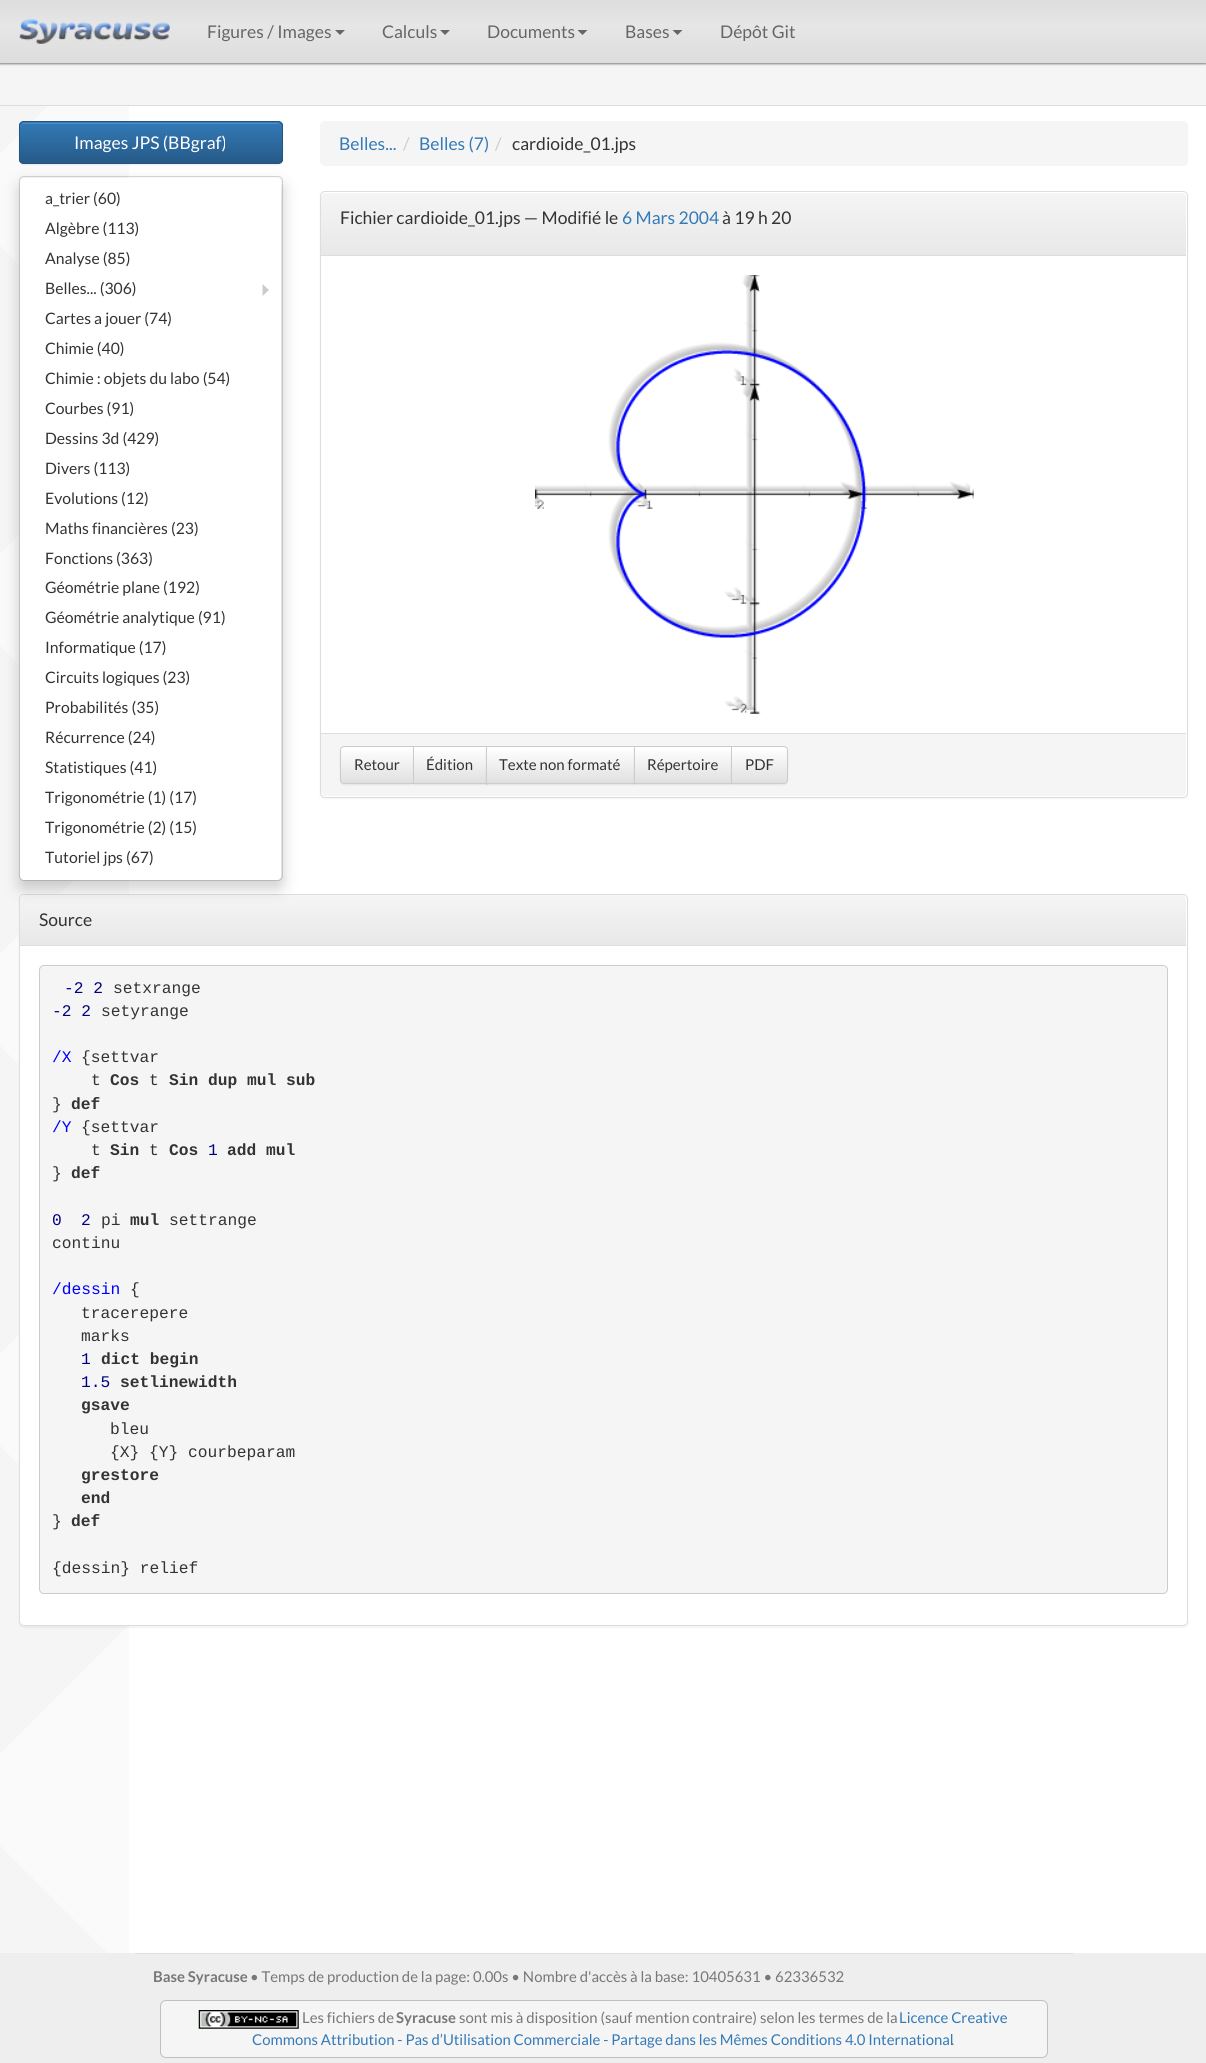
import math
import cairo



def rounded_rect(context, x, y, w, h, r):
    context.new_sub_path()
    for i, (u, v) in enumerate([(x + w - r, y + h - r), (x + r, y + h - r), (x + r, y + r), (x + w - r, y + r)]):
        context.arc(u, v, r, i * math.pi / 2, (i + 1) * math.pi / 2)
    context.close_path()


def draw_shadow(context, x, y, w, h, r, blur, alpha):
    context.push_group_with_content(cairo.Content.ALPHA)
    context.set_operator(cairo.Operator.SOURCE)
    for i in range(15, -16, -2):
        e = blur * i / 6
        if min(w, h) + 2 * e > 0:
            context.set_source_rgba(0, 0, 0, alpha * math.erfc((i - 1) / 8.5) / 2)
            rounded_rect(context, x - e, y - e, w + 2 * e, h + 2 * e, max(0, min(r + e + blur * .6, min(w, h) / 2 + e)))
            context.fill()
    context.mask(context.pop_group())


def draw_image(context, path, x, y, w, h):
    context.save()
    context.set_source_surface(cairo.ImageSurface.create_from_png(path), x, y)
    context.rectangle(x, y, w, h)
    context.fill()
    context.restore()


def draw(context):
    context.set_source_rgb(1, 1, 1)
    context.paint()
    draw_image(context, "images/1.png", 0, 106, 129, 1847)
    context.set_source_rgb(245 / 255, 245 / 255, 245 / 255)
    context.rectangle(0, 63, 1206, 42)
    context.fill()
    context.set_source_rgb(128 / 255, 128 / 255, 128 / 255)
    draw_shadow(context, 0, 1, 1206, 63, 0, 1, 1)
    gradient = cairo.LinearGradient(603, 0, 603, 63)
    gradient.add_color_stop_rgba(0, 221 / 255, 221 / 255, 221 / 255, 1)
    gradient.add_color_stop_rgba(0.4, 230 / 255, 230 / 255, 230 / 255, 1)
    gradient.add_color_stop_rgba(1, 221 / 255, 221 / 255, 221 / 255, 1)
    context.set_source(gradient)
    context.rectangle(0, 0, 1206, 63)
    context.fill()
    draw_image(context, "images/2.png", 19, 18, 151, 26)
    context.set_source_rgb(102 / 255, 102 / 255, 102 / 255)
    context.new_path()
    context.move_to(335, 30)
    context.line_to(345, 30)
    context.line_to(340, 35)
    context.close_path()
    context.fill()
    context.new_path()
    context.move_to(440, 30)
    context.line_to(450, 30)
    context.line_to(445, 35)
    context.close_path()
    context.fill()
    context.new_path()
    context.move_to(577.5, 30)
    context.line_to(587.5, 30)
    context.line_to(582.5, 35)
    context.close_path()
    context.fill()
    context.new_path()
    context.move_to(672.5, 30)
    context.line_to(682.5, 30)
    context.line_to(677.5, 35)
    context.close_path()
    context.fill()
    context.set_source_rgb(220 / 255, 220 / 255, 220 / 255)
    context.rectangle(0, 105, 1206, 1)
    context.fill()
    context.set_source_rgb(0, 0, 0)
    draw_shadow(context, 19, 123, 264, 42, 5, 0.5, 0.07)
    context.set_source_rgb(51 / 255, 122 / 255, 183 / 255)
    rounded_rect(context, 19, 121, 264, 43, 5)
    context.fill()
    context.save()
    rounded_rect(context, 19, 121, 264, 43, 5)
    context.clip()
    gradient = cairo.LinearGradient(151, 122, 151, 163)
    gradient.add_color_stop_rgba(0, 51 / 255, 122 / 255, 183 / 255, 1)
    gradient.add_color_stop_rgba(1, 38 / 255, 90 / 255, 136 / 255, 1)
    context.set_source(gradient)
    context.rectangle(19, 123, 264, 40)
    context.fill()
    context.restore()
    context.set_source_rgb(82 / 255, 141 / 255, 192 / 255)
    context.new_path()
    context.move_to(24, 124)
    context.line_to(278, 124)
    context.curve_to(280, 124, 281, 125, 281, 128)
    context.line_to(281, 127)
    context.curve_to(281, 125, 279, 123, 277, 123)
    context.line_to(24, 123)
    context.curve_to(22, 123, 20, 125, 20, 127)
    context.line_to(20, 128)
    context.curve_to(20, 125, 22, 124, 24, 124)
    context.close_path()
    context.fill()
    rounded_rect(context, 19.5, 121.5, 263, 42, 4.5)
    context.set_source_rgb(36 / 255, 85 / 255, 128 / 255)
    context.set_line_width(1)
    context.stroke()
    context.set_source_rgb(0, 0, 0)
    draw_shadow(context, 19, 895, 1169, 733, 5, 1, 0.05)
    context.set_source_rgb(1, 1, 1)
    rounded_rect(context, 19.5, 894.5, 1168, 731, 4.5)
    context.fill_preserve()
    context.set_source_rgb(221 / 255, 221 / 255, 221 / 255)
    context.stroke()
    gradient = cairo.LinearGradient(603, 895, 603, 945)
    gradient.add_color_stop_rgba(0, 245 / 255, 245 / 255, 245 / 255, 1)
    gradient.add_color_stop_rgba(1, 232 / 255, 232 / 255, 232 / 255, 1)
    context.set_source(gradient)
    context.new_path()
    context.move_to(24, 895)
    context.line_to(1182, 895)
    context.curve_to(1184, 895, 1186, 897, 1186, 899)
    context.line_to(1186, 945)
    context.line_to(20, 945)
    context.line_to(20, 899)
    context.curve_to(20, 897, 22, 895, 24, 895)
    context.close_path()
    context.fill()
    context.set_source_rgb(0, 0, 0)
    draw_shadow(context, 19, 184, 264, 705, 5, 7.5, 0.18)
    context.set_source_rgb(1, 1, 1)
    rounded_rect(context, 20, 178, 261, 702, 4)
    context.fill()
    rounded_rect(context, 19.5, 176.5, 263, 704, 4.5)
    context.set_source_rgba(0, 0, 0, 0.15)
    context.stroke()
    context.set_source_rgb(204 / 255, 204 / 255, 204 / 255)
    context.new_path()
    context.move_to(262.5, 296)
    context.line_to(262.5, 284)
    context.line_to(269, 290)
    context.close_path()
    context.fill()
    context.set_source_rgb(245 / 255, 245 / 255, 245 / 255)
    rounded_rect(context, 320, 121, 868, 45, 5)
    context.fill()
    context.set_source_rgb(0, 0, 0)
    draw_shadow(context, 320, 193, 868, 606, 5, 1, 0.05)
    context.set_source_rgb(1, 1, 1)
    rounded_rect(context, 320.5, 191.5, 867, 606, 4.5)
    context.fill_preserve()
    context.set_source_rgb(221 / 255, 221 / 255, 221 / 255)
    context.stroke()
    gradient = cairo.LinearGradient(754, 192, 754, 255)
    gradient.add_color_stop_rgba(0, 245 / 255, 245 / 255, 245 / 255, 1)
    gradient.add_color_stop_rgba(1, 232 / 255, 232 / 255, 232 / 255, 1)
    context.set_source(gradient)
    context.new_path()
    context.move_to(325, 193)
    context.line_to(1182, 193)
    context.curve_to(1184, 193, 1186, 195, 1186, 197)
    context.line_to(1186, 255)
    context.line_to(321, 255)
    context.line_to(321, 197)
    context.curve_to(321, 195, 323, 193, 325, 193)
    context.close_path()
    context.fill()
    context.set_source_rgb(221 / 255, 221 / 255, 221 / 255)
    context.rectangle(321, 255, 865, 1)
    context.fill()
    draw_image(context, "images/3.png", 535, 275, 439, 439)
    context.set_source_rgb(245 / 255, 245 / 255, 245 / 255)
    context.new_path()
    context.move_to(321, 733)
    context.line_to(1186, 733)
    context.line_to(1186, 792)
    context.curve_to(1186, 794, 1184, 796, 1182, 796)
    context.line_to(325, 796)
    context.curve_to(323, 796, 321, 794, 321, 792)
    context.close_path()
    context.fill()
    context.set_source_rgb(221 / 255, 221 / 255, 221 / 255)
    context.rectangle(321, 733, 865, 1)
    context.fill()
    context.set_source_rgb(0, 0, 0)
    draw_shadow(context, 340, 748, 74, 37, 4, 0.5, 0.07)
    context.set_source_rgb(1, 1, 1)
    context.new_path()
    context.move_to(344, 746)
    context.line_to(414, 746)
    context.line_to(414, 784)
    context.line_to(344, 784)
    context.curve_to(342, 784, 340, 782, 340, 780)
    context.line_to(340, 750)
    context.curve_to(340, 748, 342, 746, 344, 746)
    context.close_path()
    context.fill()
    context.save()
    context.new_path()
    context.move_to(344, 746)
    context.line_to(414, 746)
    context.line_to(414, 784)
    context.line_to(344, 784)
    context.curve_to(342, 784, 340, 782, 340, 780)
    context.line_to(340, 750)
    context.curve_to(340, 748, 342, 746, 344, 746)
    context.close_path()
    context.clip()
    gradient = cairo.LinearGradient(377, 748, 377, 783)
    gradient.add_color_stop_rgba(0, 1, 1, 1, 1)
    gradient.add_color_stop_rgba(1, 224 / 255, 224 / 255, 224 / 255, 1)
    context.set_source(gradient)
    context.rectangle(340, 748, 73, 35)
    context.fill()
    context.restore()
    context.set_source_rgba(1, 1, 1, 0.15)
    context.new_path()
    context.move_to(344, 749)
    context.line_to(412, 749)
    context.line_to(412, 783)
    context.line_to(413, 783)
    context.line_to(413, 748)
    context.line_to(344, 748)
    context.curve_to(342, 748, 341, 749, 341, 750)
    context.line_to(341, 751)
    context.curve_to(341, 750, 342, 749, 344, 749)
    context.close_path()
    context.fill()
    context.new_path()
    context.move_to(344, 746.5)
    context.line_to(413.5, 746.5)
    context.line_to(413.5, 783.5)
    context.line_to(344, 783.5)
    context.curve_to(342, 783.5, 340.5, 782, 340.5, 780)
    context.line_to(340.5, 750)
    context.curve_to(340.5, 748, 342, 746.5, 344, 746.5)
    context.close_path()
    context.set_source_rgb(204 / 255, 204 / 255, 204 / 255)
    context.stroke()
    context.set_source_rgb(0, 0, 0)
    draw_shadow(context, 413, 748, 75, 37, 0, 0.5, 0.07)
    context.set_source_rgb(1, 1, 1)
    context.rectangle(414, 747, 72, 1)
    context.fill()
    gradient = cairo.LinearGradient(450, 748, 450, 783)
    gradient.add_color_stop_rgba(0, 1, 1, 1, 1)
    gradient.add_color_stop_rgba(1, 224 / 255, 224 / 255, 224 / 255, 1)
    context.set_source(gradient)
    context.rectangle(414, 748, 72, 35)
    context.fill()
    context.rectangle(413.5, 746.5, 74, 37)
    context.set_source_rgb(204 / 255, 204 / 255, 204 / 255)
    context.stroke()
    context.set_source_rgb(0, 0, 0)
    draw_shadow(context, 486, 748, 149, 37, 0, 0.5, 0.07)
    context.set_source_rgb(1, 1, 1)
    context.rectangle(487, 747, 147, 1)
    context.fill()
    gradient = cairo.LinearGradient(561, 748, 561, 783)
    gradient.add_color_stop_rgba(0, 1, 1, 1, 1)
    gradient.add_color_stop_rgba(1, 224 / 255, 224 / 255, 224 / 255, 1)
    context.set_source(gradient)
    context.rectangle(487, 748, 147, 35)
    context.fill()
    context.rectangle(486.5, 746.5, 148, 37)
    context.set_source_rgb(204 / 255, 204 / 255, 204 / 255)
    context.stroke()
    context.set_source_rgb(0, 0, 0)
    draw_shadow(context, 634, 748, 99, 37, 0, 0.5, 0.07)
    context.set_source_rgb(1, 1, 1)
    context.rectangle(635, 747, 96, 1)
    context.fill()
    gradient = cairo.LinearGradient(683, 748, 683, 783)
    gradient.add_color_stop_rgba(0, 1, 1, 1, 1)
    gradient.add_color_stop_rgba(1, 224 / 255, 224 / 255, 224 / 255, 1)
    context.set_source(gradient)
    context.rectangle(635, 748, 96, 35)
    context.fill()
    context.rectangle(634.5, 746.5, 98, 37)
    context.set_source_rgb(204 / 255, 204 / 255, 204 / 255)
    context.stroke()
    context.set_source_rgb(0, 0, 0)
    draw_shadow(context, 731, 748, 57, 37, 4, 0.5, 0.07)
    context.set_source_rgb(1, 1, 1)
    context.new_path()
    context.move_to(731, 746)
    context.line_to(784, 746)
    context.curve_to(786, 746, 788, 748, 788, 750)
    context.line_to(788, 780)
    context.curve_to(788, 782, 786, 784, 784, 784)
    context.line_to(731, 784)
    context.close_path()
    context.fill()
    context.save()
    context.new_path()
    context.move_to(731, 746)
    context.line_to(784, 746)
    context.curve_to(786, 746, 788, 748, 788, 750)
    context.line_to(788, 780)
    context.curve_to(788, 782, 786, 784, 784, 784)
    context.line_to(731, 784)
    context.close_path()
    context.clip()
    gradient = cairo.LinearGradient(759, 748, 759, 783)
    gradient.add_color_stop_rgba(0, 1, 1, 1, 1)
    gradient.add_color_stop_rgba(1, 224 / 255, 224 / 255, 224 / 255, 1)
    context.set_source(gradient)
    context.rectangle(732, 748, 56, 35)
    context.fill()
    context.restore()
    context.new_path()
    context.move_to(731.5, 746.5)
    context.line_to(784, 746.5)
    context.curve_to(786, 746.5, 787.5, 748, 787.5, 750)
    context.line_to(787.5, 780)
    context.curve_to(787.5, 782, 786, 783.5, 784, 783.5)
    context.line_to(731.5, 783.5)
    context.close_path()
    context.set_source_rgb(204 / 255, 204 / 255, 204 / 255)
    context.stroke()
    context.set_source_rgb(221 / 255, 221 / 255, 221 / 255)
    context.rectangle(20, 945, 1166, 1)
    context.fill()
    context.set_source_rgb(245 / 255, 245 / 255, 245 / 255)
    rounded_rect(context, 39.5, 965.5, 1128, 628, 4.5)
    context.fill_preserve()
    context.set_source_rgb(204 / 255, 204 / 255, 204 / 255)
    context.stroke()
    context.set_source_rgb(238 / 255, 238 / 255, 238 / 255)
    context.rectangle(0, 1953, 1206, 110)
    context.fill()
    context.set_source_rgb(221 / 255, 221 / 255, 221 / 255)
    context.rectangle(135, 1953, 938, 1)
    context.fill()
    context.set_source_rgb(245 / 255, 245 / 255, 245 / 255)
    rounded_rect(context, 160.5, 2000.5, 887, 57, 5.5)
    context.fill_preserve()
    context.set_source_rgb(192 / 255, 192 / 255, 192 / 255)
    context.stroke()
    draw_image(context, "images/4.png", 198, 2010, 101, 19)
    context.select_font_face("Lato")
    context.set_font_size(17.5)
    context.set_source_rgb(102 / 255, 102 / 255, 102 / 255)
    context.move_to(207, 38)
    context.show_text("Figures / Images")
    context.move_to(382, 38)
    context.show_text("Calculs")
    context.move_to(487, 38)
    context.show_text("Documents")
    context.move_to(625, 38)
    context.show_text("Bases")
    context.move_to(720, 38)
    context.show_text("Dépôt Git")
    context.set_source_rgb(1, 1, 1)
    context.move_to(74, 149)
    context.show_text("Images JPS (BBgraf)")
    context.set_font_size(15.75)
    context.set_source_rgb(51 / 255, 51 / 255, 51 / 255)
    context.move_to(45, 204)
    context.show_text("a_trier (60)")
    context.move_to(45, 234)
    context.show_text("Algèbre (113)")
    context.move_to(45, 264)
    context.show_text("Analyse (85)")
    context.move_to(45, 294)
    context.show_text("Belles... (306)")
    context.move_to(45, 324)
    context.show_text("Cartes a jouer (74)")
    context.move_to(45, 354)
    context.show_text("Chimie (40)")
    context.move_to(45, 384)
    context.show_text("Chimie : objets du labo (54)")
    context.move_to(45, 414)
    context.show_text("Courbes (91)")
    context.move_to(45, 444)
    context.show_text("Dessins 3d (429)")
    context.move_to(45, 474)
    context.show_text("Divers (113)")
    context.move_to(45, 504)
    context.show_text("Evolutions (12)")
    context.move_to(45, 534)
    context.show_text("Maths financières (23)")
    context.move_to(45, 564)
    context.show_text("Fonctions (363)")
    context.move_to(45, 593)
    context.show_text("Géométrie plane (192)")
    context.move_to(45, 623)
    context.show_text("Géométrie analytique (91)")
    context.move_to(45, 653)
    context.show_text("Informatique (17)")
    context.move_to(45, 683)
    context.show_text("Circuits logiques (23)")
    context.move_to(45, 713)
    context.show_text("Probabilités (35)")
    context.move_to(45, 743)
    context.show_text("Récurrence (24)")
    context.move_to(45, 773)
    context.show_text("Statistiques (41)")
    context.move_to(45, 803)
    context.show_text("Trigonométrie (1) (17)")
    context.move_to(45, 833)
    context.show_text("Trigonométrie (2) (15)")
    context.move_to(45, 863)
    context.show_text("Tutoriel jps (67)")
    context.set_font_size(17.5)
    context.set_source_rgb(51 / 255, 122 / 255, 183 / 255)
    context.move_to(339, 150)
    context.show_text("Belles...")
    context.set_source_rgb(204 / 255, 204 / 255, 204 / 255)
    context.move_to(403, 150)
    context.show_text("/")
    context.set_source_rgb(51 / 255, 122 / 255, 183 / 255)
    context.move_to(419, 150)
    context.show_text("Belles (7)")
    context.set_source_rgb(204 / 255, 204 / 255, 204 / 255)
    context.move_to(495, 150)
    context.show_text("/")
    context.set_source_rgb(51 / 255, 51 / 255, 51 / 255)
    context.move_to(512, 150)
    context.show_text("cardioide_01.jps")
    context.move_to(340, 224)
    context.show_text("Fichier cardioide_01.jps — Modifié le")
    context.set_source_rgb(51 / 255, 122 / 255, 183 / 255)
    context.move_to(622, 224)
    context.show_text("6 Mars 2004")
    context.set_source_rgb(51 / 255, 51 / 255, 51 / 255)
    context.move_to(722, 224)
    context.show_text("à 19 h 20")
    context.set_font_size(15)
    context.move_to(354, 770)
    context.show_text("Retour")
    context.move_to(426, 770)
    context.show_text("Édition")
    context.move_to(499, 770)
    context.show_text("Texte non formaté")
    context.move_to(647, 770)
    context.show_text("Répertoire")
    context.move_to(745, 770)
    context.show_text("PDF")
    context.set_font_size(17.5)
    context.move_to(39, 926)
    context.show_text("Source")
    context.select_font_face("Liberation Mono")
    context.set_font_size(16.25)
    context.set_source_rgb(0, 0, 127 / 255)
    context.move_to(64, 993)
    context.show_text("-2 2")
    context.set_source_rgb(51 / 255, 51 / 255, 51 / 255)
    context.move_to(113, 993)
    context.show_text("setxrange")
    context.set_source_rgb(0, 0, 127 / 255)
    context.move_to(52, 1016)
    context.show_text("-2 2")
    context.set_source_rgb(51 / 255, 51 / 255, 51 / 255)
    context.move_to(101, 1016)
    context.show_text("setyrange")
    context.set_source_rgb(0, 0, 1)
    context.move_to(52, 1062)
    context.show_text("/X")
    context.set_source_rgb(51 / 255, 51 / 255, 51 / 255)
    context.move_to(81, 1062)
    context.show_text("{settvar")
    context.move_to(91, 1085)
    context.show_text("t")
    context.select_font_face("Liberation Mono", cairo.FontSlant.NORMAL, cairo.FontWeight.BOLD)
    context.move_to(110, 1085)
    context.show_text("Cos")
    context.select_font_face("Liberation Mono")
    context.move_to(149, 1085)
    context.show_text("t")
    context.select_font_face("Liberation Mono", cairo.FontSlant.NORMAL, cairo.FontWeight.BOLD)
    context.move_to(169, 1085)
    context.show_text("Sin dup mul sub")
    context.select_font_face("Liberation Mono")
    context.move_to(52, 1109)
    context.show_text("}")
    context.select_font_face("Liberation Mono", cairo.FontSlant.NORMAL, cairo.FontWeight.BOLD)
    context.move_to(71, 1109)
    context.show_text("def")
    context.select_font_face("Liberation Mono")
    context.set_source_rgb(0, 0, 1)
    context.move_to(52, 1132)
    context.show_text("/Y")
    context.set_source_rgb(51 / 255, 51 / 255, 51 / 255)
    context.move_to(81, 1132)
    context.show_text("{settvar")
    context.move_to(91, 1155)
    context.show_text("t")
    context.select_font_face("Liberation Mono", cairo.FontSlant.NORMAL, cairo.FontWeight.BOLD)
    context.move_to(110, 1155)
    context.show_text("Sin")
    context.select_font_face("Liberation Mono")
    context.move_to(149, 1155)
    context.show_text("t")
    context.select_font_face("Liberation Mono", cairo.FontSlant.NORMAL, cairo.FontWeight.BOLD)
    context.move_to(169, 1155)
    context.show_text("Cos")
    context.select_font_face("Liberation Mono")
    context.set_source_rgb(0, 0, 127 / 255)
    context.move_to(208, 1155)
    context.show_text("1")
    context.select_font_face("Liberation Mono", cairo.FontSlant.NORMAL, cairo.FontWeight.BOLD)
    context.set_source_rgb(51 / 255, 51 / 255, 51 / 255)
    context.move_to(227, 1155)
    context.show_text("add mul")
    context.select_font_face("Liberation Mono")
    context.move_to(52, 1178)
    context.show_text("}")
    context.select_font_face("Liberation Mono", cairo.FontSlant.NORMAL, cairo.FontWeight.BOLD)
    context.move_to(71, 1178)
    context.show_text("def")
    context.select_font_face("Liberation Mono")
    context.set_source_rgb(0, 0, 127 / 255)
    context.move_to(52, 1225)
    context.show_text("0")
    context.move_to(81, 1225)
    context.show_text("2")
    context.set_source_rgb(51 / 255, 51 / 255, 51 / 255)
    context.move_to(101, 1225)
    context.show_text("pi")
    context.select_font_face("Liberation Mono", cairo.FontSlant.NORMAL, cairo.FontWeight.BOLD)
    context.move_to(130, 1225)
    context.show_text("mul")
    context.select_font_face("Liberation Mono")
    context.move_to(169, 1225)
    context.show_text("settrange")
    context.move_to(52, 1248)
    context.show_text("continu")
    context.set_source_rgb(0, 0, 1)
    context.move_to(52, 1294)
    context.show_text("/dessin")
    context.set_source_rgb(51 / 255, 51 / 255, 51 / 255)
    context.move_to(130, 1294)
    context.show_text("{")
    context.move_to(81, 1318)
    context.show_text("tracerepere")
    context.move_to(81, 1341)
    context.show_text("marks")
    context.set_source_rgb(0, 0, 127 / 255)
    context.move_to(81, 1364)
    context.show_text("1")
    context.select_font_face("Liberation Mono", cairo.FontSlant.NORMAL, cairo.FontWeight.BOLD)
    context.set_source_rgb(51 / 255, 51 / 255, 51 / 255)
    context.move_to(101, 1364)
    context.show_text("dict begin")
    context.select_font_face("Liberation Mono")
    context.set_source_rgb(0, 0, 127 / 255)
    context.move_to(81, 1387)
    context.show_text("1.5")
    context.select_font_face("Liberation Mono", cairo.FontSlant.NORMAL, cairo.FontWeight.BOLD)
    context.set_source_rgb(51 / 255, 51 / 255, 51 / 255)
    context.move_to(120, 1387)
    context.show_text("setlinewidth")
    context.move_to(81, 1410)
    context.show_text("gsave")
    context.select_font_face("Liberation Mono")
    context.move_to(110, 1434)
    context.show_text("bleu")
    context.move_to(110, 1457)
    context.show_text("{X} {Y} courbeparam")
    context.select_font_face("Liberation Mono", cairo.FontSlant.NORMAL, cairo.FontWeight.BOLD)
    context.move_to(81, 1480)
    context.show_text("grestore")
    context.move_to(81, 1503)
    context.show_text("end")
    context.select_font_face("Liberation Mono")
    context.move_to(52, 1526)
    context.show_text("}")
    context.select_font_face("Liberation Mono", cairo.FontSlant.NORMAL, cairo.FontWeight.BOLD)
    context.move_to(71, 1526)
    context.show_text("def")
    context.select_font_face("Liberation Mono")
    context.move_to(52, 1573)
    context.show_text("{dessin} relief")
    context.select_font_face("Lato", cairo.FontSlant.NORMAL, cairo.FontWeight.BOLD)
    context.set_font_size(14.9)
    context.set_source_rgb(119 / 255, 119 / 255, 119 / 255)
    context.move_to(153, 1982)
    context.show_text("Base Syracuse")
    context.select_font_face("Lato")
    context.move_to(250, 1982)
    context.show_text("• Temps de production de la page: 0.00s • Nombre d'accès à la base: 10405631 • 62336532")
    context.move_to(302, 2023)
    context.show_text("Les fichiers de")
    context.select_font_face("Lato", cairo.FontSlant.NORMAL, cairo.FontWeight.BOLD)
    context.move_to(396, 2023)
    context.show_text("Syracuse")
    context.select_font_face("Lato")
    context.move_to(459, 2023)
    context.show_text("sont mis à disposition (sauf mention contraire) selon les termes de la")
    context.set_source_rgb(51 / 255, 122 / 255, 183 / 255)
    context.move_to(899, 2023)
    context.show_text("Licence Creative")
    context.move_to(252, 2045)
    context.show_text("Commons Attribution - Pas d’Utilisation Commerciale - Partage dans les Mêmes Conditions 4.0 International")
    context.set_source_rgb(119 / 255, 119 / 255, 119 / 255)
    context.move_to(951, 2045)
    context.show_text(".")


surface = cairo.ImageSurface(cairo.Format.RGB24, 1206, 2063)
context = cairo.Context(surface)
options = cairo.FontOptions()
options.set_hint_metrics(cairo.HintMetrics.OFF)
options.set_hint_style(cairo.HintStyle.NONE)
context.set_font_options(options)
context.set_miter_limit(4)
draw(context)
surface.write_to_png("out.png")
